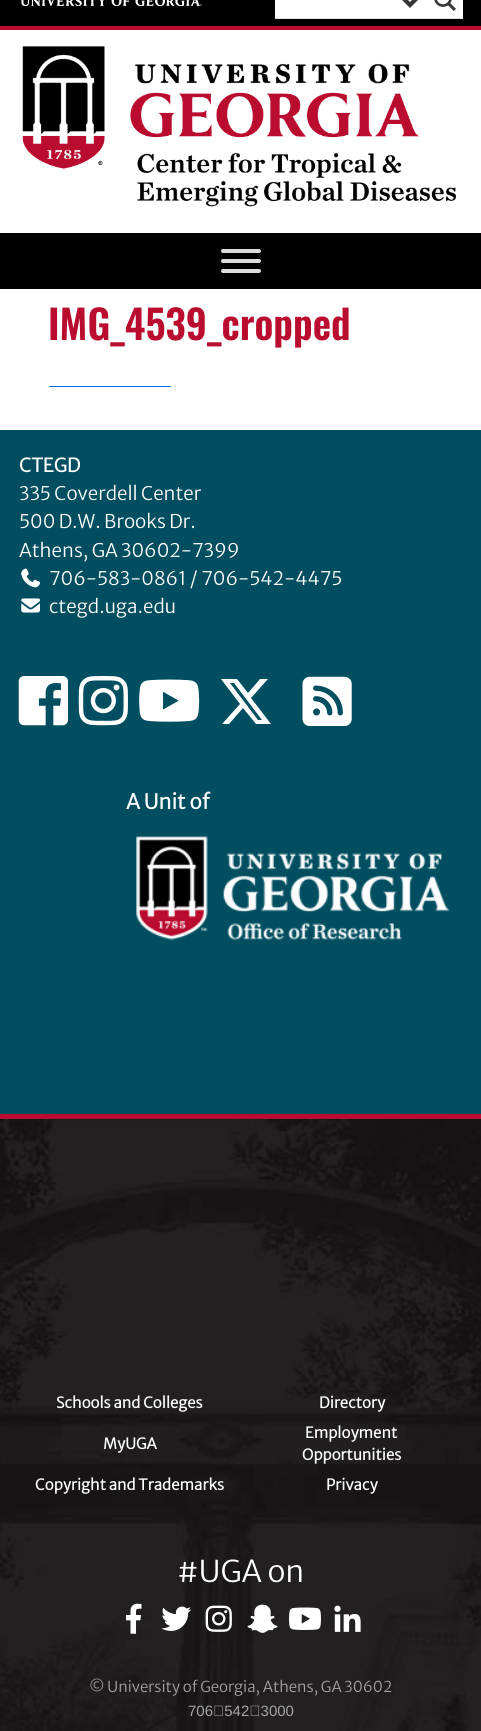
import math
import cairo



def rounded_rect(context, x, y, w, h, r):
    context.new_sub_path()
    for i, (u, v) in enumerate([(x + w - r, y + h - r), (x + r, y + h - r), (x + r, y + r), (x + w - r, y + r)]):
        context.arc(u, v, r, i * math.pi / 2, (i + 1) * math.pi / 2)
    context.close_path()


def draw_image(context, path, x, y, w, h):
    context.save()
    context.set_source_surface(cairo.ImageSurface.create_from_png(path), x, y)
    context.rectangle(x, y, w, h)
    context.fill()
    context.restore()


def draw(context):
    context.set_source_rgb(1, 1, 1)
    context.paint()
    context.set_source_rgb(0, 0, 0)
    context.rectangle(0, 0, 481, 26)
    context.fill()
    context.set_source_rgb(186 / 255, 12 / 255, 47 / 255)
    context.rectangle(0, 26, 481, 4)
    context.fill()
    draw_image(context, "images/1.png", 21, 0, 181, 6)
    context.set_source_rgb(228 / 255, 228 / 255, 228 / 255)
    context.new_path()
    context.move_to(275, 18)
    context.line_to(275, 19)
    context.line_to(463, 19)
    context.line_to(463, -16)
    context.line_to(462, -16)
    context.line_to(462, 18)
    context.close_path()
    context.fill()
    context.set_source_rgb(1, 1, 1)
    context.rectangle(275, 0, 188, 18)
    context.fill()
    context.set_source_rgb(54 / 255, 54 / 255, 54 / 255)
    context.new_path()
    context.move_to(418, -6)
    context.line_to(421, -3)
    context.line_to(410, 8)
    context.line_to(399, -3)
    context.line_to(402, -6)
    context.line_to(410, 2)
    context.close_path()
    context.fill()
    draw_image(context, "images/2.png", 434, 0, 22, 11)
    draw_image(context, "images/3.png", 22, 46, 434, 161)
    context.set_source_rgb(0, 0, 0)
    context.rectangle(0, 233, 481, 56)
    context.fill()
    context.set_source_rgb(221 / 255, 221 / 255, 221 / 255)
    rounded_rect(context, 221, 249, 40, 4, 2)
    context.fill()
    rounded_rect(context, 221, 259, 40, 4, 2)
    context.fill()
    rounded_rect(context, 221, 269, 40, 4, 2)
    context.fill()
    context.set_source_rgb(0, 114 / 255, 229 / 255)
    context.rectangle(49, 386, 122, 1)
    context.fill()
    context.set_source_rgb(0, 78 / 255, 96 / 255)
    context.rectangle(0, 430, 481, 684)
    context.fill()
    draw_image(context, "images/4.png", 21, 568, 19, 20)
    draw_image(context, "images/5.png", 21, 598, 19, 15)
    draw_image(context, "images/6.png", 18, 676, 50, 50)
    draw_image(context, "images/7.png", 78, 676, 50, 50)
    draw_image(context, "images/8.png", 139, 679, 61, 43)
    context.set_source_rgb(1, 1, 1)
    context.new_path()
    context.move_to(260, 679)
    context.line_to(268, 679)
    context.line_to(251, 698)
    context.line_to(271, 724)
    context.line_to(256, 724)
    context.line_to(243, 708)
    context.line_to(229, 724)
    context.line_to(222, 724)
    context.line_to(240, 704)
    context.line_to(221, 679)
    context.line_to(237, 679)
    context.line_to(248, 693)
    context.close_path()
    context.move_to(258, 720)
    context.line_to(262, 720)
    context.line_to(234, 683)
    context.line_to(230, 683)
    context.close_path()
    context.fill()
    draw_image(context, "images/9.png", 302, 676, 50, 50)
    draw_image(context, "images/10.png", 136, 836, 314, 104)
    draw_image(context, "images/11.png", 0, 1119, 481, 612)
    context.set_source_rgb(186 / 255, 12 / 255, 47 / 255)
    context.rectangle(0, 1114, 481, 5)
    context.fill()
    draw_image(context, "images/12.png", 126, 1603, 16, 31)
    draw_image(context, "images/13.png", 161, 1606, 31, 25)
    draw_image(context, "images/14.png", 205, 1605, 27, 27)
    draw_image(context, "images/15.png", 247, 1604, 31, 29)
    draw_image(context, "images/16.png", 289, 1607, 32, 23)
    draw_image(context, "images/17.png", 334, 1605, 27, 27)
    context.select_font_face("Oswald SemiBold")
    context.set_font_size(40)
    context.move_to(48, 340)
    context.show_text("IMG_4539_cropped")
    context.select_font_face("Merriweather Sans", cairo.FontSlant.NORMAL, cairo.FontWeight.BOLD)
    context.set_font_size(18.75)
    context.set_source_rgb(1, 1, 1)
    context.move_to(19, 472)
    context.show_text("CTEGD")
    context.select_font_face("Merriweather Sans Light")
    context.move_to(19, 500)
    context.show_text("335 Coverdell Center")
    context.move_to(19, 528)
    context.show_text("500 D.W. Brooks Dr.")
    context.move_to(19, 557)
    context.show_text("Athens, GA 30602-7399")
    context.move_to(49, 585)
    context.show_text("706-583-0861 / 706-542-4475")
    context.move_to(49, 613)
    context.show_text("ctegd.uga.edu")
    context.select_font_face("Merriweather Sans", cairo.FontSlant.NORMAL, cairo.FontWeight.BOLD)
    context.set_font_size(20.5)
    context.move_to(126, 809)
    context.show_text("A Unit of")
    context.set_font_size(15)
    context.move_to(56, 1408)
    context.show_text("Schools and Colleges")
    context.move_to(319, 1408)
    context.show_text("Directory")
    context.move_to(103, 1449)
    context.show_text("MyUGA")
    context.move_to(305, 1438)
    context.show_text("Employment")
    context.move_to(302, 1460)
    context.show_text("Opportunities")
    context.move_to(35, 1490)
    context.show_text("Copyright and Trademarks")
    context.move_to(326, 1490)
    context.show_text("Privacy")
    context.select_font_face("Merriweather Sans Light")
    context.set_font_size(30)
    context.move_to(177, 1582)
    context.show_text("#UGA on")
    context.set_font_size(15)
    context.set_source_rgb(165 / 255, 164 / 255, 165 / 255)
    context.move_to(89, 1692)
    context.show_text("© University of Georgia, Athens, GA 30602")
    context.select_font_face("Liberation Sans")
    context.move_to(188, 1716)
    context.show_text("706‑542‑3000")


surface = cairo.ImageSurface(cairo.Format.RGB24, 481, 1731)
context = cairo.Context(surface)
options = cairo.FontOptions()
options.set_hint_metrics(cairo.HintMetrics.OFF)
options.set_hint_style(cairo.HintStyle.NONE)
context.set_font_options(options)
context.set_miter_limit(4)
draw(context)
surface.write_to_png("out.png")
